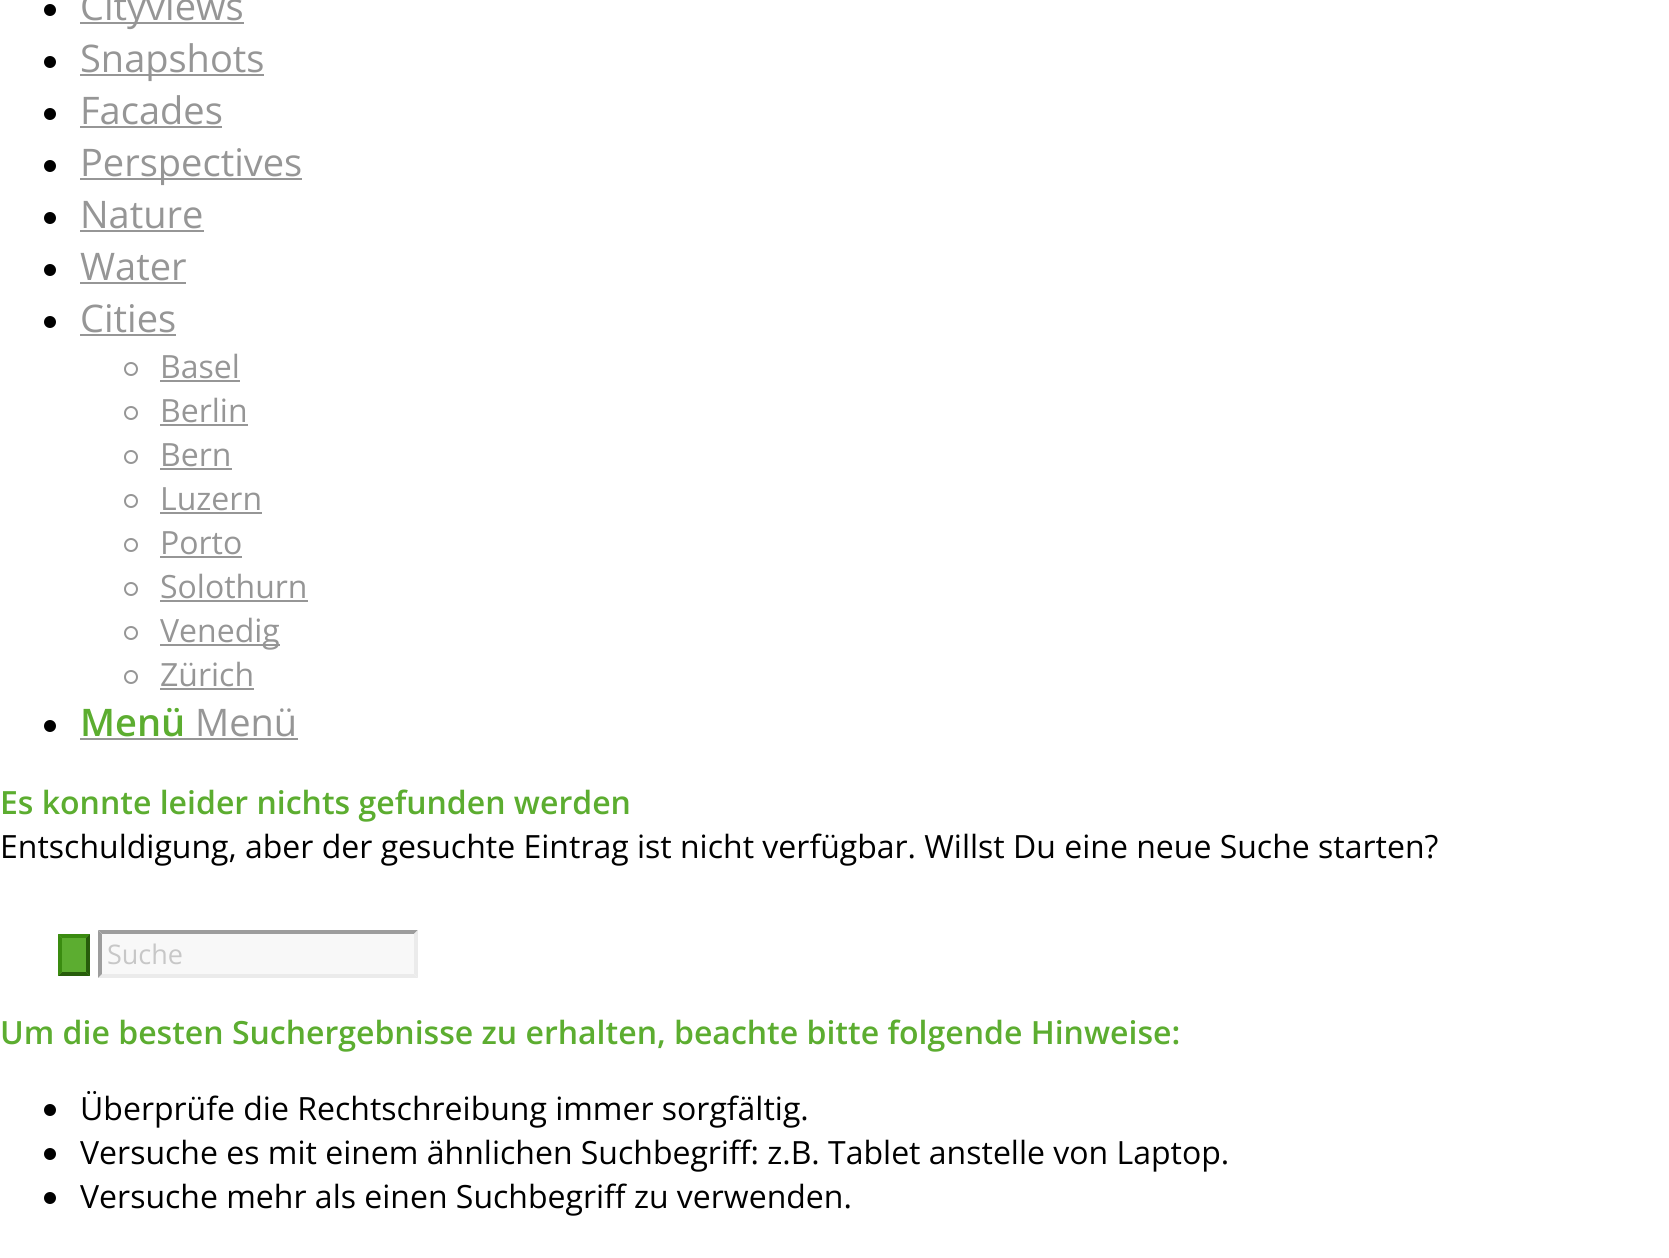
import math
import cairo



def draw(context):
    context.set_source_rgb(1, 1, 1)
    context.paint()
    context.set_source_rgb(0, 0, 0)
    context.arc(50, 10, 6, 0, 2 * math.pi)
    context.fill()
    context.set_source_rgb(150 / 255, 150 / 255, 150 / 255)
    context.rectangle(80, 22, 164, 2)
    context.fill()
    context.set_source_rgb(0, 0, 0)
    context.arc(50, 62, 6, 0, 2 * math.pi)
    context.fill()
    context.set_source_rgb(150 / 255, 150 / 255, 150 / 255)
    context.rectangle(80, 74, 184, 2)
    context.fill()
    context.set_source_rgb(0, 0, 0)
    context.arc(50, 114, 6, 0, 2 * math.pi)
    context.fill()
    context.set_source_rgb(150 / 255, 150 / 255, 150 / 255)
    context.rectangle(80, 126, 142, 2)
    context.fill()
    context.set_source_rgb(0, 0, 0)
    context.arc(50, 166, 6, 0, 2 * math.pi)
    context.fill()
    context.set_source_rgb(150 / 255, 150 / 255, 150 / 255)
    context.rectangle(80, 178, 222, 2)
    context.fill()
    context.set_source_rgb(0, 0, 0)
    context.arc(50, 218, 6, 0, 2 * math.pi)
    context.fill()
    context.set_source_rgb(150 / 255, 150 / 255, 150 / 255)
    context.rectangle(80, 230, 124, 2)
    context.fill()
    context.set_source_rgb(0, 0, 0)
    context.arc(50, 270, 6, 0, 2 * math.pi)
    context.fill()
    context.set_source_rgb(150 / 255, 150 / 255, 150 / 255)
    context.rectangle(80, 282, 106, 2)
    context.fill()
    context.set_source_rgb(0, 0, 0)
    context.arc(50, 322, 6, 0, 2 * math.pi)
    context.fill()
    context.set_source_rgb(150 / 255, 150 / 255, 150 / 255)
    context.rectangle(80, 334, 96, 2)
    context.fill()
    context.arc(131, 369, 6, 0, 2 * math.pi)
    context.stroke()
    context.rectangle(160, 380, 80, 2)
    context.fill()
    context.arc(131, 413, 6, 0, 2 * math.pi)
    context.stroke()
    context.rectangle(160, 424, 88, 2)
    context.fill()
    context.arc(131, 457, 6, 0, 2 * math.pi)
    context.stroke()
    context.rectangle(160, 468, 72, 2)
    context.fill()
    context.arc(131, 501, 6, 0, 2 * math.pi)
    context.stroke()
    context.rectangle(160, 512, 102, 2)
    context.fill()
    context.arc(131, 545, 6, 0, 2 * math.pi)
    context.stroke()
    context.rectangle(160, 556, 82, 2)
    context.fill()
    context.arc(131, 589, 6, 0, 2 * math.pi)
    context.stroke()
    context.rectangle(160, 600, 148, 2)
    context.fill()
    context.arc(131, 633, 6, 0, 2 * math.pi)
    context.stroke()
    context.rectangle(160, 644, 120, 2)
    context.fill()
    context.arc(131, 677, 6, 0, 2 * math.pi)
    context.stroke()
    context.rectangle(160, 688, 94, 2)
    context.fill()
    context.set_source_rgb(0, 0, 0)
    context.arc(50, 726, 6, 0, 2 * math.pi)
    context.fill()
    context.set_source_rgb(150 / 255, 150 / 255, 150 / 255)
    context.rectangle(80, 738, 218, 2)
    context.fill()
    context.set_source_rgb(92 / 255, 173 / 255, 48 / 255)
    context.rectangle(58, 934, 32, 42)
    context.fill()
    context.set_source_rgb(58 / 255, 139 / 255, 16 / 255)
    context.new_path()
    context.move_to(58, 934)
    context.line_to(90, 934)
    context.line_to(86, 938)
    context.line_to(62, 938)
    context.close_path()
    context.fill()
    context.set_source_rgb(39 / 255, 93 / 255, 11 / 255)
    context.new_path()
    context.move_to(90, 934)
    context.line_to(90, 976)
    context.line_to(86, 972)
    context.line_to(86, 938)
    context.close_path()
    context.fill()
    context.new_path()
    context.move_to(90, 976)
    context.line_to(58, 976)
    context.line_to(62, 972)
    context.line_to(86, 972)
    context.close_path()
    context.fill()
    context.set_source_rgb(58 / 255, 139 / 255, 16 / 255)
    context.new_path()
    context.move_to(58, 976)
    context.line_to(58, 934)
    context.line_to(62, 938)
    context.line_to(62, 972)
    context.close_path()
    context.fill()
    context.set_source_rgb(248 / 255, 248 / 255, 248 / 255)
    context.rectangle(98, 930, 320, 48)
    context.fill()
    context.set_source_rgb(157 / 255, 157 / 255, 157 / 255)
    context.new_path()
    context.move_to(98, 930)
    context.line_to(418, 930)
    context.line_to(414, 934)
    context.line_to(102, 934)
    context.close_path()
    context.fill()
    context.set_source_rgb(235 / 255, 235 / 255, 235 / 255)
    context.new_path()
    context.move_to(418, 930)
    context.line_to(418, 978)
    context.line_to(414, 974)
    context.line_to(414, 934)
    context.close_path()
    context.fill()
    context.new_path()
    context.move_to(418, 978)
    context.line_to(98, 978)
    context.line_to(102, 974)
    context.line_to(414, 974)
    context.close_path()
    context.fill()
    context.set_source_rgb(157 / 255, 157 / 255, 157 / 255)
    context.new_path()
    context.move_to(98, 978)
    context.line_to(98, 930)
    context.line_to(102, 934)
    context.line_to(102, 974)
    context.close_path()
    context.fill()
    context.set_source_rgb(0, 0, 0)
    context.arc(50, 1110, 6, 0, 2 * math.pi)
    context.fill()
    context.arc(50, 1154, 6, 0, 2 * math.pi)
    context.fill()
    context.arc(50, 1198, 6, 0, 2 * math.pi)
    context.fill()
    context.select_font_face("Open Sans")
    context.set_font_size(38)
    context.set_source_rgb(150 / 255, 150 / 255, 150 / 255)
    context.move_to(80, 20)
    context.show_text("Cityviews")
    context.move_to(80, 72)
    context.show_text("Snapshots")
    context.move_to(80, 124)
    context.show_text("Facades")
    context.move_to(80, 176)
    context.show_text("Perspectives")
    context.move_to(80, 228)
    context.show_text("Nature")
    context.move_to(80, 280)
    context.show_text("Water")
    context.move_to(80, 332)
    context.show_text("Cities")
    context.set_font_size(32)
    context.move_to(160, 378)
    context.show_text("Basel")
    context.move_to(160, 422)
    context.show_text("Berlin")
    context.move_to(160, 466)
    context.show_text("Bern")
    context.move_to(160, 510)
    context.show_text("Luzern")
    context.move_to(160, 554)
    context.show_text("Porto")
    context.move_to(160, 598)
    context.show_text("Solothurn")
    context.move_to(160, 642)
    context.show_text("Venedig")
    context.move_to(160, 686)
    context.show_text("Zürich")
    context.select_font_face("Open Sans SemiBold")
    context.set_font_size(38)
    context.set_source_rgb(92 / 255, 173 / 255, 48 / 255)
    context.move_to(80, 736)
    context.show_text("Menü")
    context.select_font_face("Open Sans")
    context.set_source_rgb(150 / 255, 150 / 255, 150 / 255)
    context.move_to(195, 736)
    context.show_text("Menü")
    context.select_font_face("Open Sans SemiBold")
    context.set_font_size(32)
    context.set_source_rgb(92 / 255, 173 / 255, 48 / 255)
    context.move_to(0, 814)
    context.show_text("Es konnte leider nichts gefunden werden")
    context.select_font_face("Open Sans")
    context.set_source_rgb(0, 0, 0)
    context.move_to(0, 858)
    context.show_text("Entschuldigung, aber der gesuchte Eintrag ist nicht verfügbar. Willst Du eine neue Suche starten?")
    context.set_font_size(27)
    context.set_source_rgb(199 / 255, 199 / 255, 199 / 255)
    context.move_to(107, 964)
    context.show_text("Suche")
    context.select_font_face("Open Sans SemiBold")
    context.set_font_size(32)
    context.set_source_rgb(92 / 255, 173 / 255, 48 / 255)
    context.move_to(0, 1044)
    context.show_text("Um die besten Suchergebnisse zu erhalten, beachte bitte folgende Hinweise:")
    context.select_font_face("Open Sans")
    context.set_source_rgb(0, 0, 0)
    context.move_to(80, 1120)
    context.show_text("Überprüfe die Rechtschreibung immer sorgfältig.")
    context.move_to(80, 1164)
    context.show_text("Versuche es mit einem ähnlichen Suchbegriff: z.B. Tablet anstelle von Laptop.")
    context.move_to(80, 1208)
    context.show_text("Versuche mehr als einen Suchbegriff zu verwenden.")


surface = cairo.ImageSurface(cairo.Format.RGB24, 1669, 1258)
context = cairo.Context(surface)
options = cairo.FontOptions()
options.set_hint_metrics(cairo.HintMetrics.OFF)
options.set_hint_style(cairo.HintStyle.NONE)
context.set_font_options(options)
context.set_miter_limit(4)
draw(context)
surface.write_to_png("out.png")
